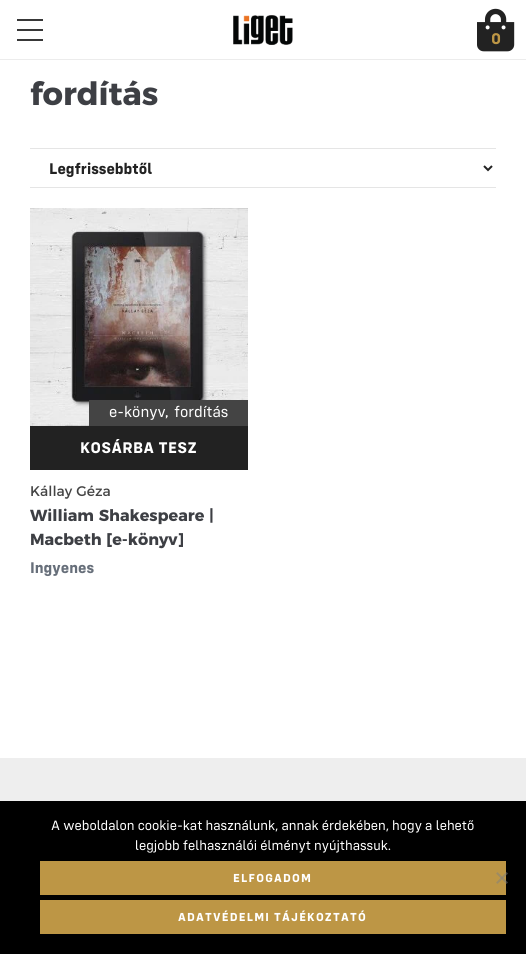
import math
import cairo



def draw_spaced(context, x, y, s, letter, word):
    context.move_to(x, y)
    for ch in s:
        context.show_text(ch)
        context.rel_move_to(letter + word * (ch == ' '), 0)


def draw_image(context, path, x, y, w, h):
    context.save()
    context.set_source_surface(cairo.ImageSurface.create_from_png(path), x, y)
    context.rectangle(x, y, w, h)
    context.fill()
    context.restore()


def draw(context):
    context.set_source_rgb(1, 1, 1)
    context.paint()
    context.set_source_rgb(236 / 255, 236 / 255, 236 / 255)
    context.rectangle(0, 59, 526, 1)
    context.fill()
    context.set_source_rgb(56 / 255, 56 / 255, 56 / 255)
    context.rectangle(17, 19, 26, 2)
    context.fill()
    context.rectangle(17, 29, 26, 2)
    context.fill()
    context.rectangle(17, 39, 26, 2)
    context.fill()
    draw_image(context, "images/1.png", 233, 15, 60, 30)
    draw_image(context, "images/2.png", 477, 8, 38, 44)
    context.set_source_rgb(229 / 255, 229 / 255, 229 / 255)
    context.rectangle(30, 148, 466, 1)
    context.fill()
    context.rectangle(30, 187, 466, 1)
    context.fill()
    context.new_path()
    context.move_to(484, 166)
    context.line_to(488, 170)
    context.line_to(492, 166)
    context.set_source_rgb(34 / 255, 34 / 255, 34 / 255)
    context.stroke()
    draw_image(context, "images/3.png", 30, 208, 218, 218)
    context.set_source_rgb(68 / 255, 68 / 255, 68 / 255)
    context.rectangle(89, 400, 159, 26)
    context.fill()
    context.set_source_rgb(34 / 255, 34 / 255, 34 / 255)
    context.rectangle(30, 426, 218, 44)
    context.fill()
    context.set_source_rgb(238 / 255, 238 / 255, 238 / 255)
    context.rectangle(0, 758, 526, 43)
    context.fill()
    context.set_source_rgb(0, 0, 0)
    context.rectangle(0, 801, 526, 153)
    context.fill()
    context.set_source_rgb(189 / 255, 150 / 255, 69 / 255)
    context.rectangle(40, 861, 466, 34)
    context.fill()
    context.rectangle(40, 900, 466, 34)
    context.fill()
    context.set_source_rgba(128 / 255, 128 / 255, 128 / 255, 0.5)
    context.new_path()
    context.move_to(506.5, 872)
    context.line_to(508, 873.5)
    context.line_to(497.5, 884)
    context.line_to(496, 882.5)
    context.close_path()
    context.fill()
    context.new_path()
    context.move_to(496, 873.5)
    context.line_to(497.5, 872)
    context.line_to(508, 882.5)
    context.line_to(506.5, 884)
    context.close_path()
    context.fill()
    context.select_font_face("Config", cairo.FontSlant.NORMAL, cairo.FontWeight.BOLD)
    context.set_font_size(16)
    context.set_source_rgb(189 / 255, 150 / 255, 69 / 255)
    context.move_to(491, 44)
    context.show_text("0")
    context.select_font_face("Montserrat", cairo.FontSlant.NORMAL, cairo.FontWeight.BOLD)
    context.set_font_size(32)
    context.set_source_rgb(61 / 255, 63 / 255, 68 / 255)
    context.move_to(30, 105)
    context.show_text("fordítás")
    context.select_font_face("Config", cairo.FontSlant.NORMAL, cairo.FontWeight.BOLD)
    context.set_font_size(16)
    context.set_source_rgb(34 / 255, 34 / 255, 34 / 255)
    context.move_to(49, 174)
    context.show_text("Legfrissebbtől")
    context.select_font_face("Config")
    context.set_source_rgb(1, 1, 1)
    context.move_to(109, 417)
    context.show_text("e-könyv")
    context.select_font_face("Montserrat")
    context.move_to(165, 417)
    context.show_text(",")
    context.select_font_face("Config")
    context.move_to(174, 417)
    context.show_text("fordítás")
    context.select_font_face("Config", cairo.FontSlant.NORMAL, cairo.FontWeight.BOLD)
    draw_spaced(context, 80, 453, "KOSÁRBA TESZ", 0.5, 0)
    context.select_font_face("Montserrat")
    context.set_font_size(14)
    context.set_source_rgb(68 / 255, 68 / 255, 68 / 255)
    context.move_to(30, 496)
    context.show_text("Kállay Géza")
    context.select_font_face("Montserrat", cairo.FontSlant.NORMAL, cairo.FontWeight.BOLD)
    context.set_font_size(16)
    context.set_source_rgb(61 / 255, 63 / 255, 68 / 255)
    context.move_to(30, 521)
    context.show_text("William Shakespeare |")
    context.move_to(30, 545)
    context.show_text("Macbeth [e-könyv]")
    context.select_font_face("Config", cairo.FontSlant.NORMAL, cairo.FontWeight.BOLD)
    context.set_source_rgb(103 / 255, 111 / 255, 122 / 255)
    context.move_to(30, 573)
    context.show_text("Ingyenes")
    context.select_font_face("Config")
    context.set_font_size(14)
    context.set_source_rgb(1, 1, 1)
    context.move_to(51, 830)
    context.show_text("A weboldalon cookie-kat használunk, annak érdekében, hogy a lehető")
    context.move_to(135, 850)
    context.show_text("legjobb felhasználói élményt nyújthassuk.")
    context.select_font_face("Config", cairo.FontSlant.NORMAL, cairo.FontWeight.BOLD)
    context.set_font_size(12)
    draw_spaced(context, 233, 882, "ELFOGADOM", 1.2, 0)
    draw_spaced(context, 178, 921, "ADATVÉDELMI TÁJÉKOZTATÓ", 1.2, 0)


surface = cairo.ImageSurface(cairo.Format.RGB24, 526, 954)
context = cairo.Context(surface)
options = cairo.FontOptions()
options.set_hint_metrics(cairo.HintMetrics.OFF)
options.set_hint_style(cairo.HintStyle.NONE)
context.set_font_options(options)
context.set_miter_limit(4)
draw(context)
surface.write_to_png("out.png")
